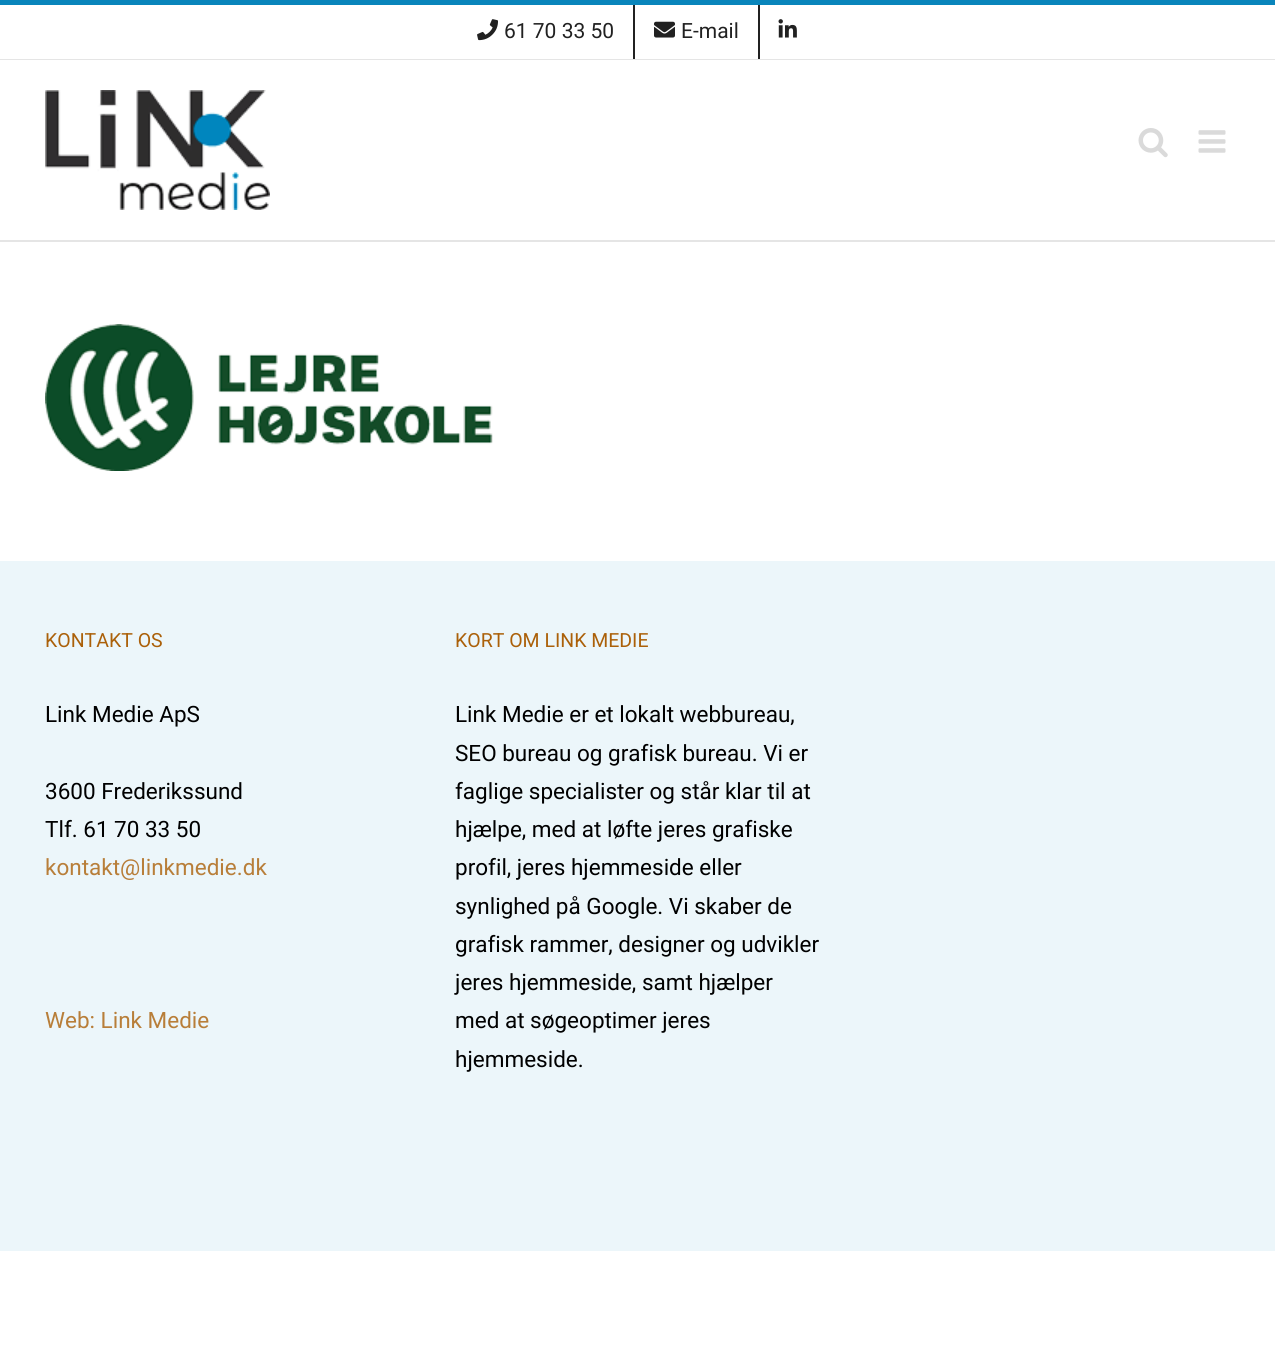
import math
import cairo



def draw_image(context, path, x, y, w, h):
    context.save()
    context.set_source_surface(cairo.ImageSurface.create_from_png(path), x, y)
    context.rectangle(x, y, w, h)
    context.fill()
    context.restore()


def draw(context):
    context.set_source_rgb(1, 1, 1)
    context.paint()
    context.set_source_rgb(9 / 255, 133 / 255, 187 / 255)
    context.rectangle(0, 0, 1275, 5)
    context.fill()
    context.set_source_rgb(229 / 255, 229 / 255, 229 / 255)
    context.rectangle(0, 59, 1275, 1)
    context.fill()
    draw_image(context, "images/1.png", 477, 19, 21, 22)
    context.set_source_rgb(33 / 255, 33 / 255, 33 / 255)
    context.rectangle(633, 5, 2, 54)
    context.fill()
    draw_image(context, "images/2.png", 654, 21, 21, 17)
    context.rectangle(758, 5, 2, 54)
    context.fill()
    draw_image(context, "images/3.png", 778, 19, 19, 19)
    context.set_source_rgb(229 / 255, 229 / 255, 229 / 255)
    context.rectangle(0, 240, 1275, 2)
    context.fill()
    draw_image(context, "images/4.png", 45, 90, 225, 120)
    draw_image(context, "images/5.png", 1138, 128, 30, 30)
    draw_image(context, "images/6.png", 1198, 130, 28, 23)
    draw_image(context, "images/7.png", 45, 324, 448, 147)
    context.set_source_rgb(236 / 255, 246 / 255, 250 / 255)
    context.rectangle(0, 561, 1275, 690)
    context.fill()
    context.select_font_face("Roboto")
    context.set_font_size(21)
    context.set_source_rgb(33 / 255, 33 / 255, 33 / 255)
    context.move_to(504, 38)
    context.show_text("61 70 33 50")
    context.move_to(681, 38)
    context.show_text("E-mail")
    context.set_font_size(19.5)
    context.set_source_rgb(171 / 255, 96 / 255, 9 / 255)
    context.move_to(45, 647)
    context.show_text("KONTAKT OS")
    context.set_font_size(22.5)
    context.set_source_rgb(0, 0, 0)
    context.move_to(45, 722)
    context.show_text("Link Medie ApS")
    context.move_to(45, 799)
    context.show_text("3600 Frederikssund")
    context.move_to(45, 837)
    context.show_text("Tlf. 61 70 33 50")
    context.set_source_rgb(184 / 255, 126 / 255, 57 / 255)
    context.move_to(45, 875)
    context.show_text("kontakt@linkmedie.dk")
    context.move_to(45, 1028)
    context.show_text("Web: Link Medie")
    context.set_font_size(19.5)
    context.set_source_rgb(171 / 255, 96 / 255, 9 / 255)
    context.move_to(455, 647)
    context.show_text("KORT OM LINK MEDIE")
    context.set_font_size(22.5)
    context.set_source_rgb(0, 0, 0)
    context.move_to(455, 722)
    context.show_text("Link Medie er et lokalt webbureau,")
    context.move_to(455, 761)
    context.show_text("SEO bureau og grafisk bureau. Vi er")
    context.move_to(455, 799)
    context.show_text("faglige specialister og står klar til at")
    context.move_to(455, 837)
    context.show_text("hjælpe, med at løfte jeres grafiske")
    context.move_to(455, 875)
    context.show_text("profil, jeres hjemmeside eller")
    context.move_to(455, 914)
    context.show_text("synlighed på Google. Vi skaber de")
    context.move_to(455, 952)
    context.show_text("grafisk rammer, designer og udvikler")
    context.move_to(455, 990)
    context.show_text("jeres hjemmeside, samt hjælper")
    context.move_to(455, 1028)
    context.show_text("med at søgeoptimer jeres")
    context.move_to(455, 1067)
    context.show_text("hjemmeside.")


surface = cairo.ImageSurface(cairo.Format.RGB24, 1275, 1358)
context = cairo.Context(surface)
options = cairo.FontOptions()
options.set_hint_metrics(cairo.HintMetrics.OFF)
options.set_hint_style(cairo.HintStyle.NONE)
context.set_font_options(options)
context.set_miter_limit(4)
draw(context)
surface.write_to_png("out.png")
